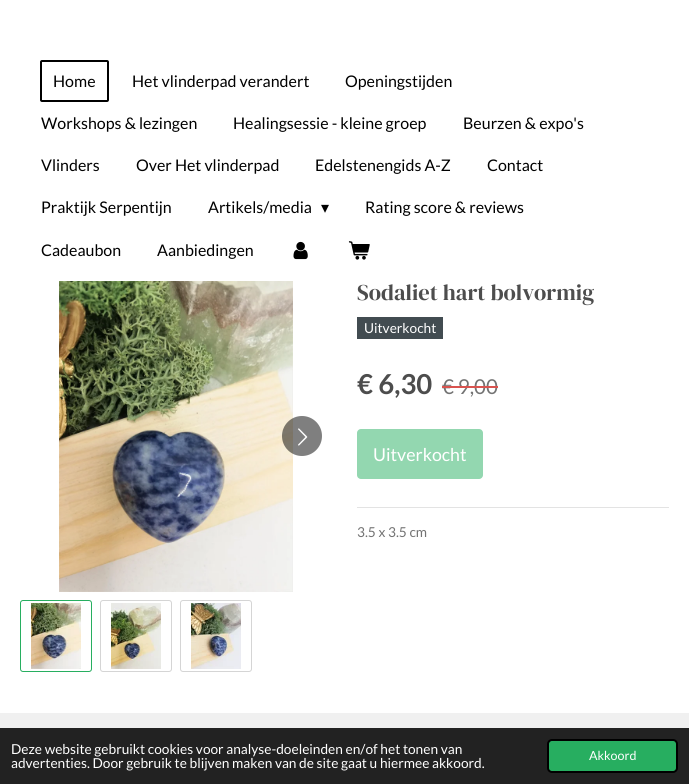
import math
import cairo



def rounded_rect(context, x, y, w, h, r):
    context.new_sub_path()
    for i, (u, v) in enumerate([(x + w - r, y + h - r), (x + r, y + h - r), (x + r, y + r), (x + w - r, y + r)]):
        context.arc(u, v, r, i * math.pi / 2, (i + 1) * math.pi / 2)
    context.close_path()


def draw_image(context, path, x, y, w, h):
    context.save()
    context.set_source_surface(cairo.ImageSurface.create_from_png(path), x, y)
    context.rectangle(x, y, w, h)
    context.fill()
    context.restore()


def draw(context):
    context.set_source_rgb(1, 1, 1)
    context.paint()
    rounded_rect(context, 41, 61, 67, 40, 1)
    context.set_source_rgb(0, 0, 0)
    context.stroke()
    draw_image(context, "images/1.png", 293, 241, 15, 19)
    draw_image(context, "images/2.png", 348, 241, 22, 19)
    draw_image(context, "images/3.png", 59, 281, 234, 311)
    context.set_source_rgba(0, 0, 0, 0.5)
    context.arc(302, 436, 20, 0, 2 * math.pi)
    context.fill()
    draw_image(context, "images/4.png", 298, 428, 10, 18)
    rounded_rect(context, 20.5, 600.5, 71, 71, 2.5)
    context.set_source_rgb(39 / 255, 174 / 255, 96 / 255)
    context.set_line_width(1)
    context.stroke()
    draw_image(context, "images/5.png", 31, 603, 50, 66)
    rounded_rect(context, 100.5, 600.5, 71, 71, 2.5)
    context.set_source_rgb(213 / 255, 213 / 255, 213 / 255)
    context.stroke()
    draw_image(context, "images/6.png", 111, 603, 50, 66)
    rounded_rect(context, 180.5, 600.5, 71, 71, 2.5)
    context.stroke()
    draw_image(context, "images/7.png", 191, 603, 50, 66)
    context.set_source_rgb(66 / 255, 76 / 255, 81 / 255)
    context.rectangle(357, 317, 86, 22)
    context.fill()
    context.set_source_rgb(147 / 255, 215 / 255, 176 / 255)
    rounded_rect(context, 357, 429, 126, 50, 4)
    context.fill()
    context.set_source_rgb(227 / 255, 227 / 255, 227 / 255)
    context.rectangle(357, 507, 312, 1)
    context.fill()
    context.set_source_rgb(240 / 255, 240 / 255, 240 / 255)
    context.rectangle(0, 713, 689, 15)
    context.fill()
    context.set_source_rgb(34 / 255, 34 / 255, 34 / 255)
    context.rectangle(0, 728, 689, 56)
    context.fill()
    context.set_source_rgb(39 / 255, 174 / 255, 96 / 255)
    rounded_rect(context, 548, 740, 129, 32, 4)
    context.fill_preserve()
    context.set_source_rgb(0, 0, 0)
    context.set_line_width(2)
    context.stroke()
    context.select_font_face("Lato")
    context.set_font_size(16)
    context.move_to(53, 87)
    context.show_text("Home")
    context.move_to(132, 87)
    context.show_text("Het vlinderpad verandert")
    context.move_to(345, 87)
    context.show_text("Openingstijden")
    context.move_to(41, 129)
    context.show_text("Workshops & lezingen")
    context.move_to(233, 129)
    context.show_text("Healingsessie - kleine groep")
    context.move_to(463, 129)
    context.show_text("Beurzen & expo's")
    context.move_to(41, 171)
    context.show_text("Vlinders")
    context.move_to(136, 171)
    context.show_text("Over Het vlinderpad")
    context.move_to(315, 171)
    context.show_text("Edelstenengids A-Z")
    context.move_to(487, 171)
    context.show_text("Contact")
    context.move_to(41, 213)
    context.show_text("Praktijk Serpentijn")
    context.move_to(208, 213)
    context.show_text("Artikels/media")
    context.select_font_face("DejaVu Sans")
    context.move_to(321, 213)
    context.show_text("▾")
    context.select_font_face("Lato")
    context.move_to(365, 213)
    context.show_text("Rating score & reviews")
    context.move_to(41, 256)
    context.show_text("Cadeaubon")
    context.move_to(157, 256)
    context.show_text("Aanbiedingen")
    context.select_font_face("DM Serif Display")
    context.set_font_size(22.5)
    context.set_source_rgb(77 / 255, 77 / 255, 77 / 255)
    context.move_to(357, 300)
    context.show_text("Sodaliet hart bolvormig")
    context.select_font_face("Lato")
    context.set_font_size(13.7)
    context.set_source_rgb(1, 1, 1)
    context.move_to(364, 333)
    context.show_text("Uitverkocht")
    context.select_font_face("Lato", cairo.FontSlant.NORMAL, cairo.FontWeight.BOLD)
    context.set_font_size(27.5)
    context.set_source_rgb(77 / 255, 77 / 255, 77 / 255)
    context.move_to(357, 394)
    context.show_text("€ 6,30")
    context.select_font_face("Lato")
    context.set_font_size(20.5)
    context.set_source_rgb(115 / 255, 115 / 255, 115 / 255)
    context.move_to(442, 394)
    context.show_text("€ 9,00")
    context.set_source_rgb(217 / 255, 83 / 255, 79 / 255)
    context.rectangle(442, 386, 56, 2)
    context.fill()
    context.set_font_size(17.75)
    context.set_source_rgb(1, 1, 1)
    context.move_to(373, 461)
    context.show_text("Uitverkocht")
    context.set_font_size(13.7)
    context.set_source_rgb(115 / 255, 115 / 255, 115 / 255)
    context.move_to(357, 537)
    context.show_text("3.5 x 3.5 cm")
    context.set_source_rgb(1, 1, 1)
    context.move_to(11, 754)
    context.show_text("Deze website gebruikt cookies voor analyse-doeleinden en/of het tonen van")
    context.move_to(11, 768)
    context.show_text("advertenties. Door gebruik te blijven maken van de site gaat u hiermee akkoord.")
    context.set_font_size(12.5)
    context.move_to(589, 760)
    context.show_text("Akkoord")


surface = cairo.ImageSurface(cairo.Format.RGB24, 689, 784)
context = cairo.Context(surface)
options = cairo.FontOptions()
options.set_hint_metrics(cairo.HintMetrics.OFF)
options.set_hint_style(cairo.HintStyle.NONE)
context.set_font_options(options)
context.set_miter_limit(4)
draw(context)
surface.write_to_png("out.png")
